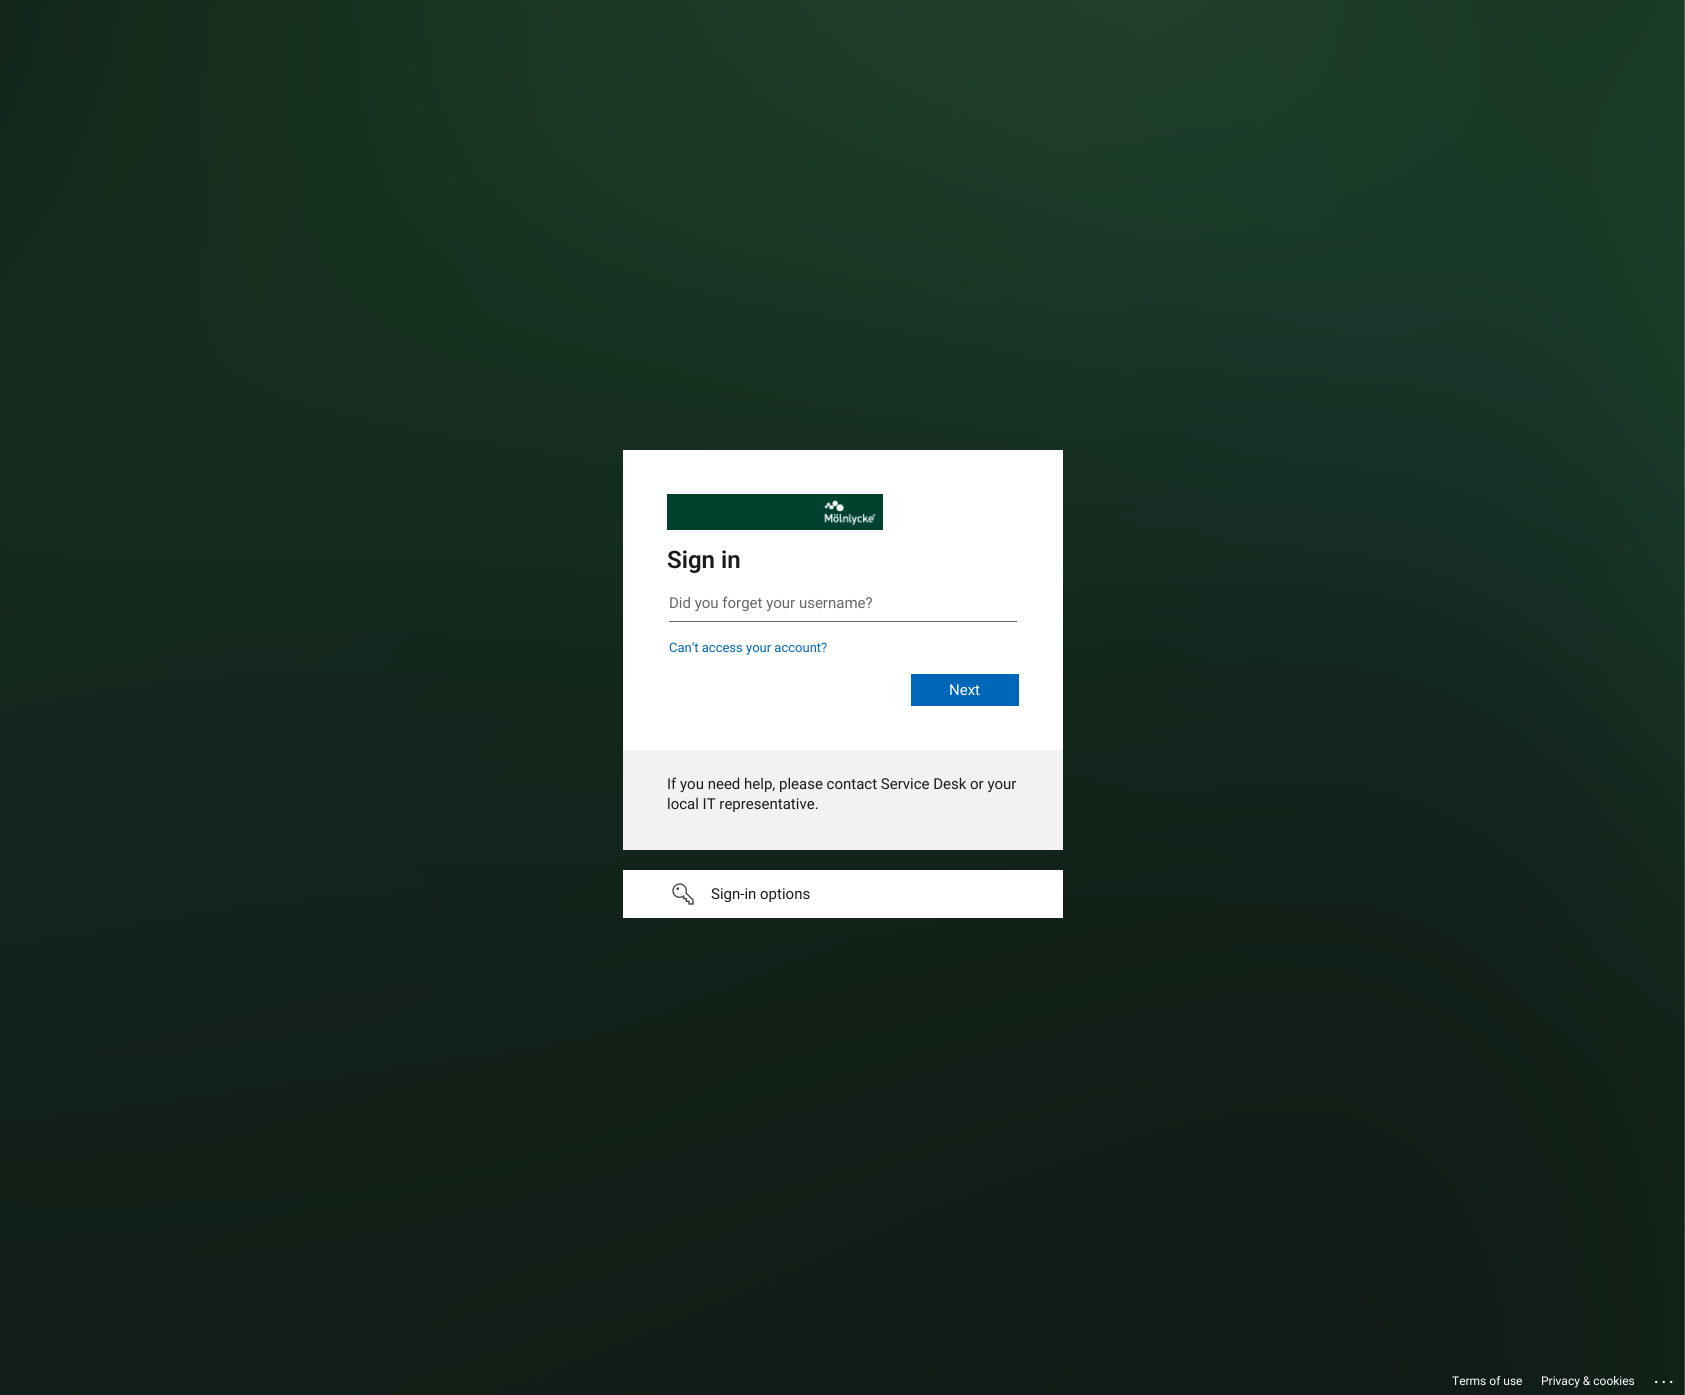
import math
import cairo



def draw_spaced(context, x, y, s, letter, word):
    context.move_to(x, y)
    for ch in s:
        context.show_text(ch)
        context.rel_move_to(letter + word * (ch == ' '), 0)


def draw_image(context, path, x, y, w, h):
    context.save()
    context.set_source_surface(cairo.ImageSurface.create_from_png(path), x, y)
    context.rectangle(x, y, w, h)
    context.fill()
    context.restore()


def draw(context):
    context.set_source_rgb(1, 1, 1)
    context.paint()
    draw_image(context, "images/1.png", 0, 0, 1685, 1395)
    context.set_source_rgb(1, 1, 1)
    context.rectangle(623, 450, 440, 300)
    context.fill()
    draw_image(context, "images/2.png", 667, 494, 216, 36)
    context.set_source_rgb(102 / 255, 102 / 255, 102 / 255)
    context.rectangle(669, 621, 348, 1)
    context.fill()
    context.set_source_rgb(0, 103 / 255, 184 / 255)
    context.rectangle(911, 674, 108, 32)
    context.fill()
    context.set_source_rgb(242 / 255, 242 / 255, 242 / 255)
    context.rectangle(623, 750, 440, 100)
    context.fill()
    context.set_source_rgb(1, 1, 1)
    context.rectangle(623, 870, 440, 48)
    context.fill()
    draw_image(context, "images/3.png", 672, 883, 22, 22)
    context.select_font_face("Roboto SemiBold")
    context.set_font_size(24)
    context.set_source_rgb(27 / 255, 27 / 255, 27 / 255)
    context.move_to(667, 568)
    context.show_text("Sign in")
    context.select_font_face("Roboto")
    context.set_font_size(15)
    context.set_source_rgb(102 / 255, 102 / 255, 102 / 255)
    context.move_to(669, 608)
    context.show_text("Did you forget your username?")
    context.set_font_size(13)
    context.set_source_rgb(0, 103 / 255, 184 / 255)
    context.move_to(669, 652)
    context.show_text("Can’t access your account?")
    context.set_font_size(15)
    context.set_source_rgb(1, 1, 1)
    context.move_to(949, 695)
    context.show_text("Next")
    context.set_source_rgb(27 / 255, 27 / 255, 27 / 255)
    context.move_to(667, 789)
    context.show_text("If you need help, please contact Service Desk or your")
    context.move_to(667, 809)
    context.show_text("local IT representative.")
    context.move_to(711, 899)
    context.show_text("Sign-in options")
    context.set_font_size(12)
    context.set_source_rgb(1, 1, 1)
    context.move_to(1452, 1385)
    context.show_text("Terms of use")
    context.move_to(1541, 1385)
    context.show_text("Privacy & cookies")
    context.select_font_face("Roboto SemiBold")
    context.set_font_size(16)
    draw_spaced(context, 1654, 1383, "...", 3, 0)


surface = cairo.ImageSurface(cairo.Format.RGB24, 1685, 1395)
context = cairo.Context(surface)
options = cairo.FontOptions()
options.set_hint_metrics(cairo.HintMetrics.OFF)
options.set_hint_style(cairo.HintStyle.NONE)
context.set_font_options(options)
context.set_miter_limit(4)
draw(context)
surface.write_to_png("out.png")
